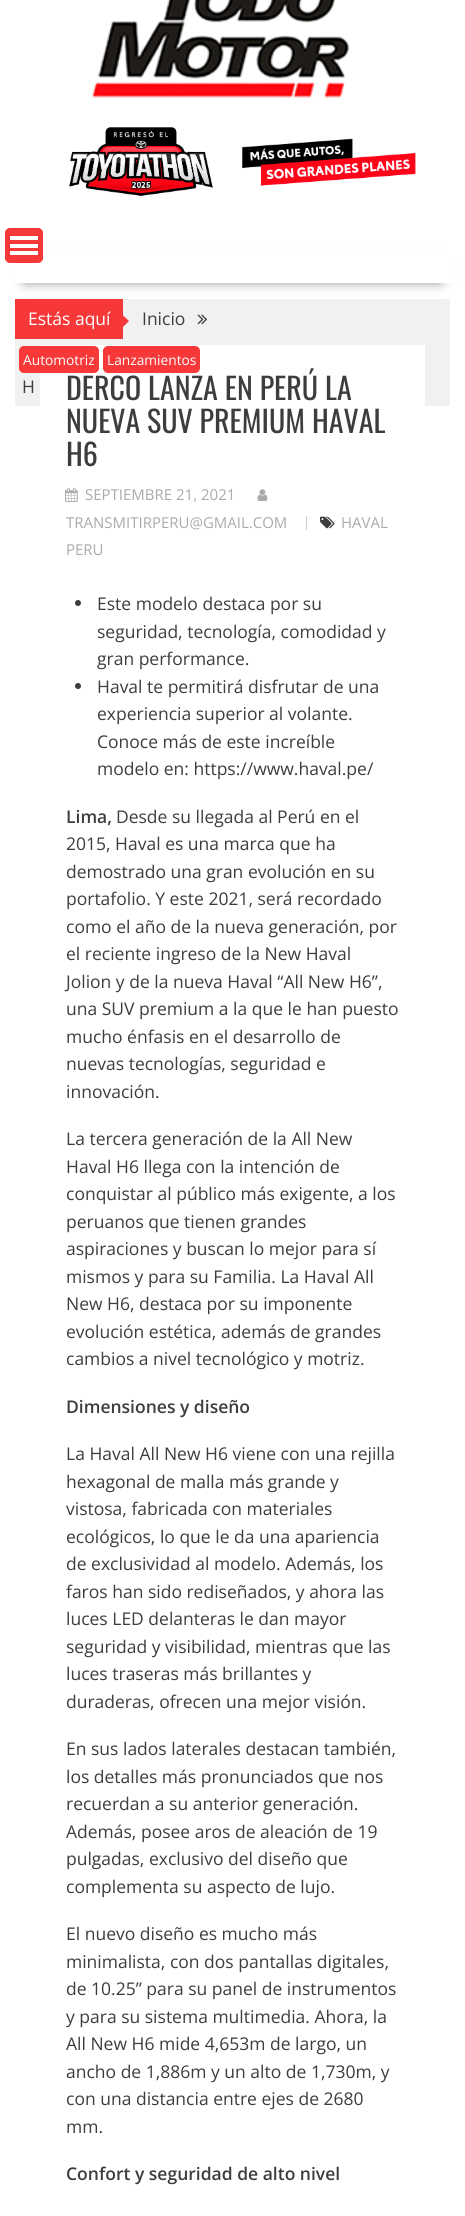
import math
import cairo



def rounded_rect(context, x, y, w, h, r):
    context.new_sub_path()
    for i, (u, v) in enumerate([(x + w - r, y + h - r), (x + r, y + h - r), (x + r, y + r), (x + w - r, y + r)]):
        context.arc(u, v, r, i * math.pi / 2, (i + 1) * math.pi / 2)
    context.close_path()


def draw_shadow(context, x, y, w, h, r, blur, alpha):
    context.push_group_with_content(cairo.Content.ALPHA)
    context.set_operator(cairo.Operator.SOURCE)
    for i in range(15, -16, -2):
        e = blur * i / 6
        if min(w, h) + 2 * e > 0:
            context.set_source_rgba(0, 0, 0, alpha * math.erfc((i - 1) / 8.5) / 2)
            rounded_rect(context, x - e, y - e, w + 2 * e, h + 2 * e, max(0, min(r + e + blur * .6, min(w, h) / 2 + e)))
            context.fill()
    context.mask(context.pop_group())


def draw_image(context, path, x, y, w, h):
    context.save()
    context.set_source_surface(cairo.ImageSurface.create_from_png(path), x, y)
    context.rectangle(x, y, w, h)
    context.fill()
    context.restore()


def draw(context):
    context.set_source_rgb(1, 1, 1)
    context.paint()
    draw_image(context, "images/1.png", 92, 0, 258, 98)
    draw_image(context, "images/2.png", 69, 127, 347, 70)
    context.set_source_rgb(241 / 255, 241 / 255, 241 / 255)
    context.rectangle(15, 299, 435, 107)
    context.fill()
    context.set_source_rgb(0, 0, 0)
    draw_shadow(context, 25, 264, 415, 15, 0, 7, 0.75)
    context.set_source_rgb(1, 1, 1)
    context.rectangle(10, 249, 445, 34)
    context.fill()
    context.set_source_rgb(247 / 255, 56 / 255, 56 / 255)
    rounded_rect(context, 5.5, 228.5, 37, 34, 4.5)
    context.fill_preserve()
    context.set_line_width(1)
    context.stroke()
    context.set_source_rgb(1, 1, 1)
    context.rectangle(10, 251, 28, 4)
    context.fill()
    context.rectangle(10, 244, 28, 4)
    context.fill()
    context.rectangle(10, 236, 28, 4)
    context.fill()
    context.set_source_rgb(247 / 255, 56 / 255, 56 / 255)
    context.rectangle(15, 299, 108, 40)
    context.fill()
    context.new_path()
    context.move_to(122.5, 327.5)
    context.line_to(122.5, 315)
    context.line_to(129, 321)
    context.close_path()
    context.fill()
    draw_image(context, "images/3.png", 197, 314, 10, 11)
    context.set_source_rgb(1, 1, 1)
    context.rectangle(40, 345, 385, 61)
    context.fill()
    draw_image(context, "images/4.png", 65, 488, 13, 14)
    draw_image(context, "images/5.png", 257, 489, 11, 12)
    context.set_source_rgb(204 / 255, 204 / 255, 204 / 255)
    context.rectangle(306, 516, 1, 14)
    context.fill()
    draw_image(context, "images/6.png", 320, 516, 15, 13)
    context.set_source_rgb(61 / 255, 61 / 255, 61 / 255)
    context.arc(78, 603, 3, 0, 2 * math.pi)
    context.fill()
    context.arc(78, 686, 3, 0, 2 * math.pi)
    context.fill()
    context.select_font_face("Open Sans")
    context.set_font_size(17.5)
    context.set_source_rgb(1, 1, 1)
    context.move_to(28, 325)
    context.show_text("Estás aquí")
    context.set_source_rgb(61 / 255, 61 / 255, 61 / 255)
    context.move_to(142, 325)
    context.show_text("Inicio")
    context.move_to(22, 393)
    context.show_text("H")
    context.select_font_face("Oswald")
    context.set_font_size(30)
    context.move_to(66, 400)
    context.show_text("DERCO LANZA EN PERÚ LA")
    context.set_source_rgb(247 / 255, 56 / 255, 56 / 255)
    rounded_rect(context, 103, 346, 97, 27, 5)
    context.fill()
    context.select_font_face("Open Sans")
    context.set_font_size(13.75)
    context.set_source_rgb(1, 1, 1)
    context.move_to(107, 365)
    context.show_text("Lanzamientos")
    context.set_source_rgb(247 / 255, 56 / 255, 56 / 255)
    rounded_rect(context, 19, 346, 80, 27, 5)
    context.fill()
    context.set_source_rgb(1, 1, 1)
    context.move_to(23, 365)
    context.show_text("Automotriz")
    context.select_font_face("Oswald")
    context.set_font_size(30)
    context.set_source_rgb(61 / 255, 61 / 255, 61 / 255)
    context.move_to(66, 433)
    context.show_text("NUEVA SUV PREMIUM HAVAL")
    context.move_to(66, 466)
    context.show_text("H6")
    context.select_font_face("Open Sans")
    context.set_font_size(15)
    context.set_source_rgb(170 / 255, 170 / 255, 170 / 255)
    context.move_to(85, 500)
    context.show_text("SEPTIEMBRE 21, 2021")
    context.move_to(66, 528)
    context.show_text("TRANSMITIRPERU@GMAIL.COM")
    context.move_to(341, 528)
    context.show_text("HAVAL")
    context.move_to(66, 555)
    context.show_text("PERU")
    context.set_font_size(17.5)
    context.set_source_rgb(61 / 255, 61 / 255, 61 / 255)
    context.move_to(97, 610)
    context.show_text("Este modelo destaca por su")
    context.move_to(97, 638)
    context.show_text("seguridad, tecnología, comodidad y")
    context.move_to(97, 665)
    context.show_text("gran performance.")
    context.move_to(97, 693)
    context.show_text("Haval te permitirá disfrutar de una")
    context.move_to(97, 720)
    context.show_text("experiencia superior al volante.")
    context.move_to(97, 748)
    context.show_text("Conoce más de este increíble")
    context.move_to(97, 775)
    context.show_text("modelo en: https://www.haval.pe/")
    context.select_font_face("Open Sans SemiBold")
    context.move_to(66, 823)
    context.show_text("Lima,")
    context.select_font_face("Open Sans")
    context.move_to(116, 823)
    context.show_text("Desde su llegada al Perú en el")
    context.move_to(66, 850)
    context.show_text("2015, Haval es una marca que ha")
    context.move_to(66, 878)
    context.show_text("demostrado una gran evolución en su")
    context.move_to(66, 905)
    context.show_text("portafolio. Y este 2021, será recordado")
    context.move_to(66, 933)
    context.show_text("como el año de la nueva generación, por")
    context.move_to(66, 960)
    context.show_text("el reciente ingreso de la New Haval")
    context.move_to(66, 988)
    context.show_text("Jolion y de la nueva Haval “All New H6”,")
    context.move_to(66, 1015)
    context.show_text("una SUV premium a la que le han puesto")
    context.move_to(66, 1043)
    context.show_text("mucho énfasis en el desarrollo de")
    context.move_to(66, 1070)
    context.show_text("nuevas tecnologías, seguridad e")
    context.move_to(66, 1098)
    context.show_text("innovación.")
    context.move_to(66, 1145)
    context.show_text("La tercera generación de la All New")
    context.move_to(66, 1173)
    context.show_text("Haval H6 llega con la intención de")
    context.move_to(66, 1200)
    context.show_text("conquistar al público más exigente, a los")
    context.move_to(66, 1228)
    context.show_text("peruanos que tienen grandes")
    context.move_to(66, 1255)
    context.show_text("aspiraciones y buscan lo mejor para sí")
    context.move_to(66, 1283)
    context.show_text("mismos y para su Familia. La Haval All")
    context.move_to(66, 1310)
    context.show_text("New H6, destaca por su imponente")
    context.move_to(66, 1338)
    context.show_text("evolución estética, además de grandes")
    context.move_to(66, 1365)
    context.show_text("cambios a nivel tecnológico y motriz.")
    context.select_font_face("Open Sans SemiBold")
    context.move_to(66, 1413)
    context.show_text("Dimensiones y diseño")
    context.select_font_face("Open Sans")
    context.move_to(66, 1460)
    context.show_text("La Haval All New H6 viene con una rejilla")
    context.move_to(66, 1488)
    context.show_text("hexagonal de malla más grande y")
    context.move_to(66, 1515)
    context.show_text("vistosa, fabricada con materiales")
    context.move_to(66, 1543)
    context.show_text("ecológicos, lo que le da una apariencia")
    context.move_to(66, 1570)
    context.show_text("de exclusividad al modelo. Además, los")
    context.move_to(66, 1598)
    context.show_text("faros han sido rediseñados, y ahora las")
    context.move_to(66, 1625)
    context.show_text("luces LED delanteras le dan mayor")
    context.move_to(66, 1653)
    context.show_text("seguridad y visibilidad, mientras que las")
    context.move_to(66, 1680)
    context.show_text("luces traseras más brillantes y")
    context.move_to(66, 1708)
    context.show_text("duraderas, ofrecen una mejor visión.")
    context.move_to(66, 1755)
    context.show_text("En sus lados laterales destacan también,")
    context.move_to(66, 1783)
    context.show_text("los detalles más pronunciados que nos")
    context.move_to(66, 1810)
    context.show_text("recuerdan a su anterior generación.")
    context.move_to(66, 1838)
    context.show_text("Además, posee aros de aleación de 19")
    context.move_to(66, 1865)
    context.show_text("pulgadas, exclusivo del diseño que")
    context.move_to(66, 1893)
    context.show_text("complementa su aspecto de lujo.")
    context.move_to(66, 1940)
    context.show_text("El nuevo diseño es mucho más")
    context.move_to(66, 1968)
    context.show_text("minimalista, con dos pantallas digitales,")
    context.move_to(66, 1995)
    context.show_text("de 10.25” para su panel de instrumentos")
    context.move_to(66, 2023)
    context.show_text("y para su sistema multimedia. Ahora, la")
    context.move_to(66, 2050)
    context.show_text("All New H6 mide 4,653m de largo, un")
    context.move_to(66, 2078)
    context.show_text("ancho de 1,886m y un alto de 1,730m, y")
    context.move_to(66, 2105)
    context.show_text("con una distancia entre ejes de 2680")
    context.move_to(66, 2133)
    context.show_text("mm.")
    context.select_font_face("Open Sans SemiBold")
    context.move_to(66, 2180)
    context.show_text("Confort y seguridad de alto nivel")


surface = cairo.ImageSurface(cairo.Format.RGB24, 465, 2216)
context = cairo.Context(surface)
options = cairo.FontOptions()
options.set_hint_metrics(cairo.HintMetrics.OFF)
options.set_hint_style(cairo.HintStyle.NONE)
context.set_font_options(options)
context.set_miter_limit(4)
draw(context)
surface.write_to_png("out.png")
